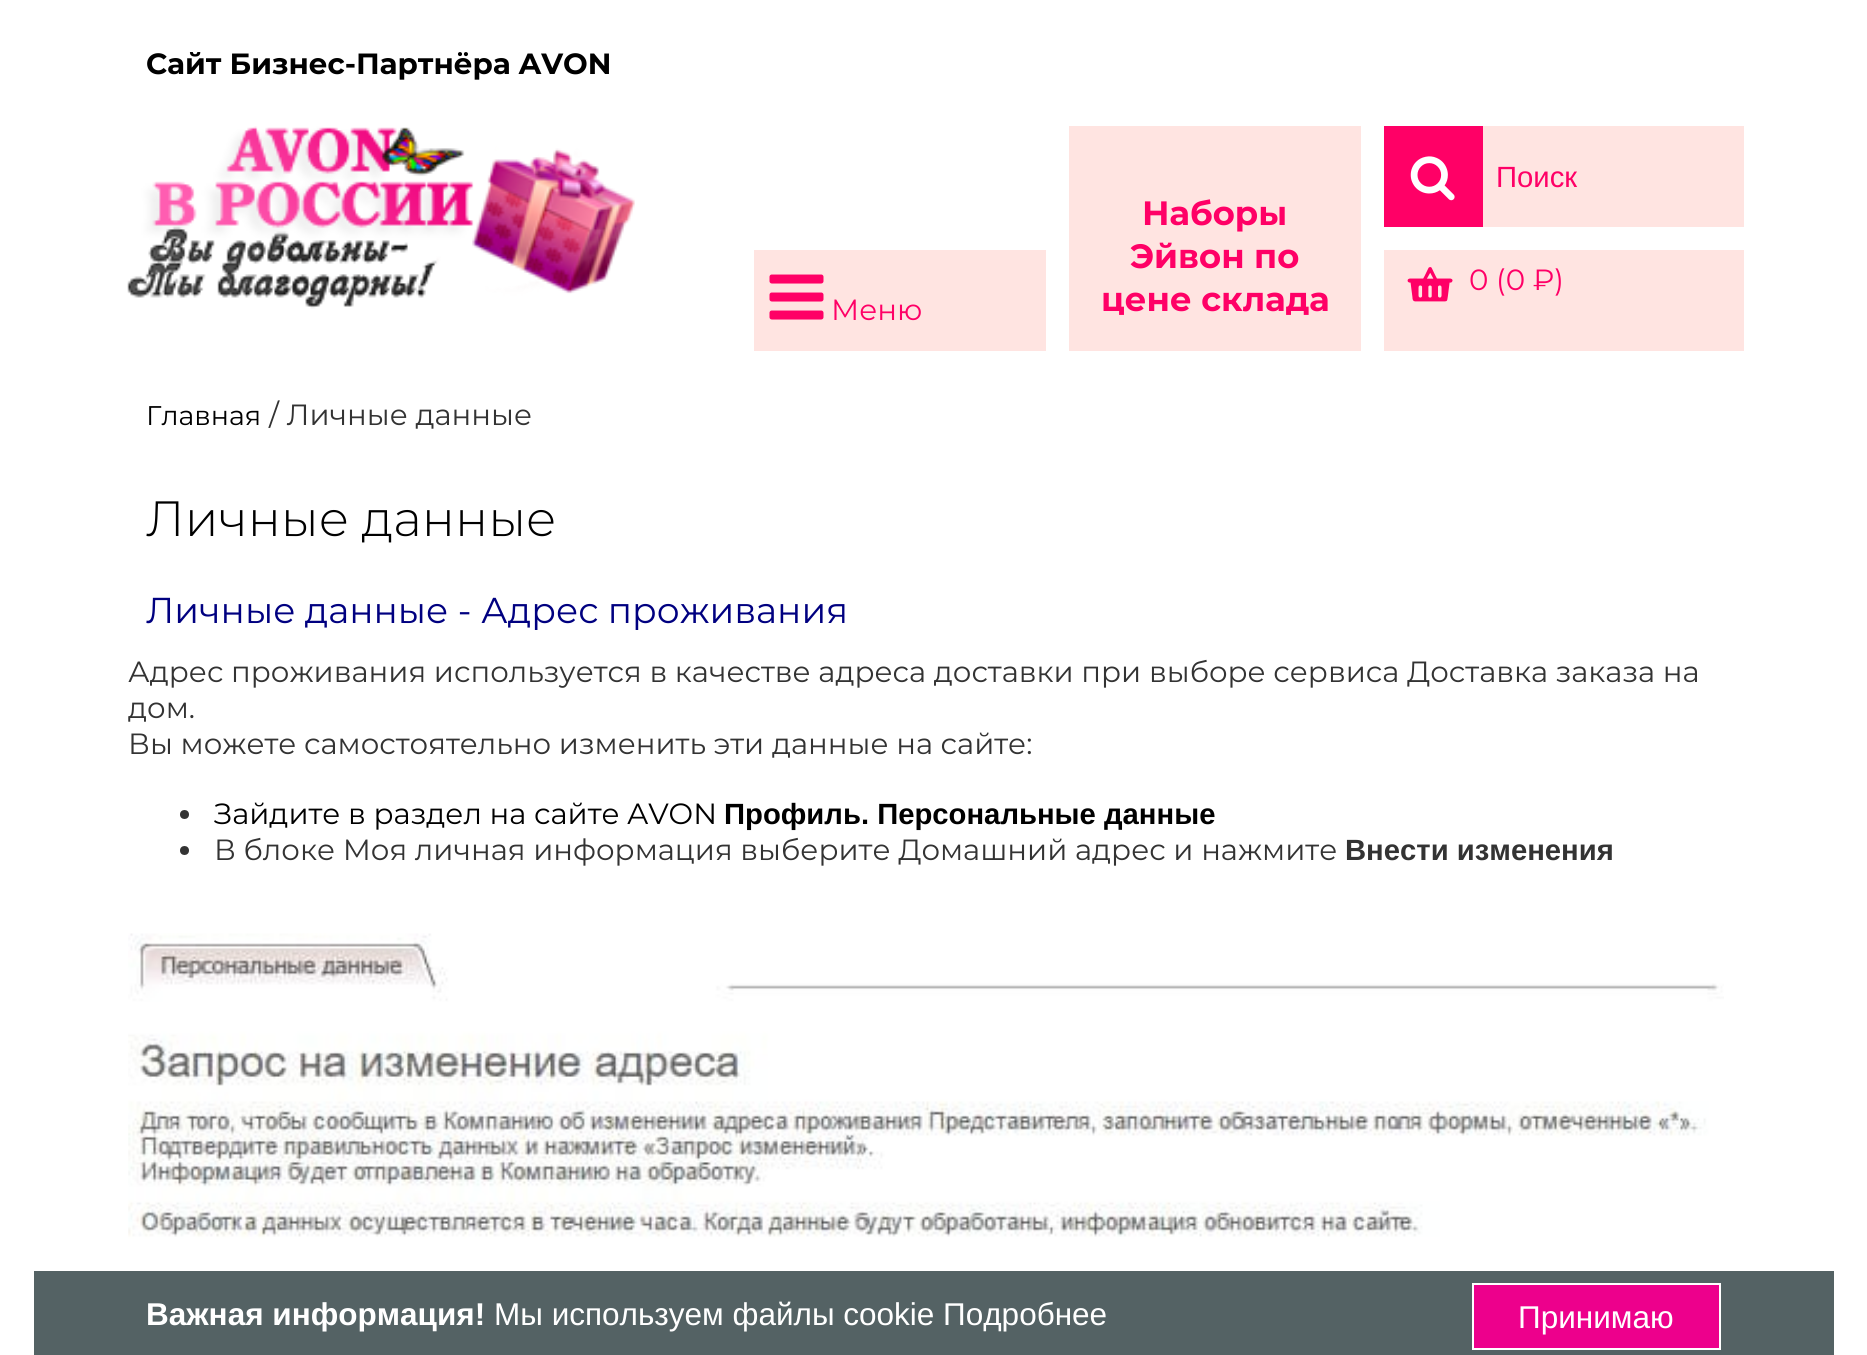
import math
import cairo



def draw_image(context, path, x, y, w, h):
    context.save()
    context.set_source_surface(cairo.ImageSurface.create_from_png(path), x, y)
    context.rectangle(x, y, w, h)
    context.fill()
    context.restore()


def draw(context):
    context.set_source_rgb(1, 1, 1)
    context.paint()
    draw_image(context, "images/1.png", 127, 126, 508, 183)
    context.set_source_rgb(1, 0, 102 / 255)
    context.rectangle(1384, 126, 99, 101)
    context.fill()
    draw_image(context, "images/2.png", 1410, 156, 45, 45)
    context.set_source_rgb(1, 228 / 255, 225 / 255)
    context.rectangle(1483, 126, 261, 101)
    context.fill()
    context.rectangle(1069, 126, 292, 225)
    context.fill()
    context.rectangle(1384, 250, 360, 101)
    context.fill()
    draw_image(context, "images/3.png", 1407, 267, 46, 35)
    context.rectangle(754, 250, 292, 101)
    context.fill()
    draw_image(context, "images/4.png", 769, 274, 55, 46)
    context.set_source_rgb(51 / 255, 51 / 255, 51 / 255)
    context.arc(184.5, 814.5, 4.5, 0, 2 * math.pi)
    context.fill()
    context.arc(184.5, 850.5, 4.5, 0, 2 * math.pi)
    context.fill()
    draw_image(context, "images/5.png", 128, 933, 1596, 338)
    context.set_source_rgb(84 / 255, 98 / 255, 100 / 255)
    context.rectangle(34, 1271, 1800, 84)
    context.fill()
    context.set_source_rgb(237 / 255, 0, 140 / 255)
    context.rectangle(1473, 1284, 247, 65)
    context.fill_preserve()
    context.set_source_rgb(1, 1, 1)
    context.stroke()
    context.select_font_face("Montserrat", cairo.FontSlant.NORMAL, cairo.FontWeight.BOLD)
    context.set_font_size(29.25)
    context.set_source_rgb(0, 0, 0)
    context.move_to(146, 74)
    context.show_text("Сайт Бизнес-Партнёра AVON")
    context.select_font_face("Liberation Sans")
    context.set_source_rgb(1, 0, 102 / 255)
    context.move_to(1496, 187)
    context.show_text("Поиск")
    context.select_font_face("Montserrat", cairo.FontSlant.NORMAL, cairo.FontWeight.BOLD)
    context.set_font_size(33.75)
    context.move_to(1142, 225)
    context.show_text("Наборы")
    context.move_to(1130, 268)
    context.show_text("Эйвон по")
    context.move_to(1101, 311)
    context.show_text("цене склада")
    context.select_font_face("Montserrat")
    context.set_font_size(29.25)
    context.move_to(1469, 290)
    context.show_text("0 (0 ₽)")
    context.move_to(831, 320)
    context.show_text("Меню")
    context.set_font_size(27)
    context.set_source_rgb(0, 0, 0)
    context.move_to(146, 425)
    context.show_text("Главная")
    context.set_font_size(29.25)
    context.set_source_rgb(51 / 255, 51 / 255, 51 / 255)
    context.move_to(269, 425)
    context.show_text("/ Личные данные")
    context.select_font_face("Montserrat Light")
    context.set_font_size(49.5)
    context.set_source_rgb(0, 0, 0)
    context.move_to(146, 536)
    context.show_text("Личные данные")
    context.select_font_face("Montserrat")
    context.set_font_size(36)
    context.set_source_rgb(0, 0, 128 / 255)
    context.move_to(146, 623)
    context.show_text("Личные данные - Адрес проживания")
    context.set_font_size(29.25)
    context.set_source_rgb(51 / 255, 51 / 255, 51 / 255)
    context.move_to(128, 682)
    context.show_text("Адрес проживания используется в качестве адреса доставки при выборе сервиса Доставка заказа на")
    context.move_to(128, 718)
    context.show_text("дом.")
    context.move_to(128, 754)
    context.show_text("Вы можете самостоятельно изменить эти данные на сайте:")
    context.set_source_rgb(0, 0, 0)
    context.move_to(214, 824)
    context.show_text("Зайдите в раздел на сайте AVON")
    context.select_font_face("Liberation Sans", cairo.FontSlant.NORMAL, cairo.FontWeight.BOLD)
    context.move_to(724, 824)
    context.show_text("Профиль. Персональные данные")
    context.select_font_face("Montserrat")
    context.set_source_rgb(51 / 255, 51 / 255, 51 / 255)
    context.move_to(214, 860)
    context.show_text("В блоке Моя личная информация выберите Домашний адрес и нажмите")
    context.select_font_face("Liberation Sans", cairo.FontSlant.NORMAL, cairo.FontWeight.BOLD)
    context.move_to(1345, 860)
    context.show_text("Внести изменения")
    context.set_font_size(31.5)
    context.set_source_rgb(1, 1, 1)
    context.move_to(146, 1325)
    context.show_text("Важная информация!")
    context.select_font_face("Liberation Sans")
    context.move_to(494, 1325)
    context.show_text("Мы используем файлы cookie Подробнее")
    context.move_to(1518, 1328)
    context.show_text("Принимаю")


surface = cairo.ImageSurface(cairo.Format.RGB24, 1867, 1355)
context = cairo.Context(surface)
options = cairo.FontOptions()
options.set_hint_metrics(cairo.HintMetrics.OFF)
options.set_hint_style(cairo.HintStyle.NONE)
context.set_font_options(options)
context.set_miter_limit(4)
draw(context)
surface.write_to_png("out.png")
